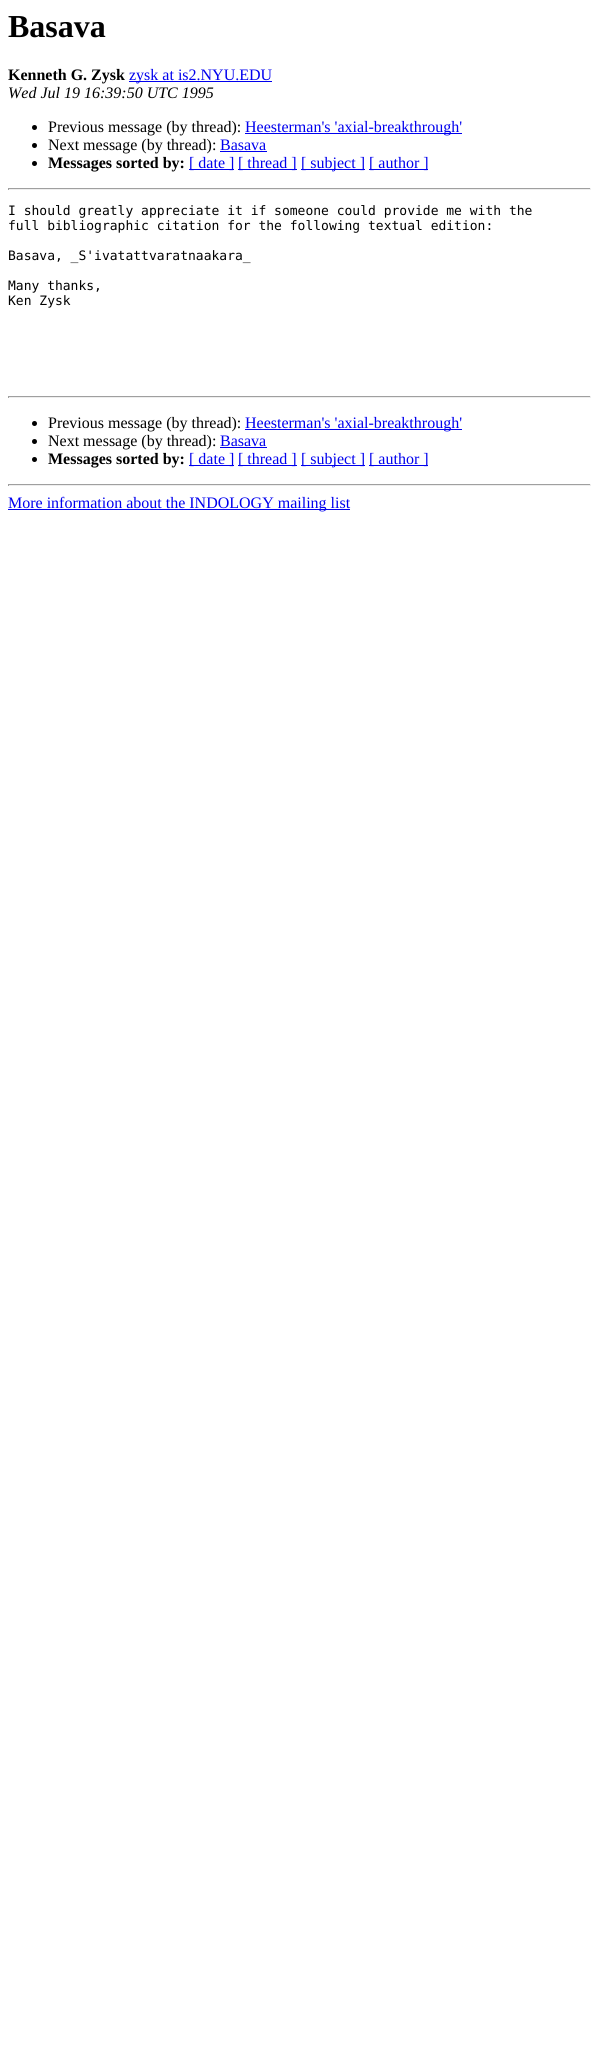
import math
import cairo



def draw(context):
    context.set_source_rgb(1, 1, 1)
    context.paint()
    context.set_source_rgb(0, 0, 238 / 255)
    context.rectangle(129, 81, 143, 1)
    context.fill()
    context.set_source_rgb(0, 0, 0)
    context.arc(34.5, 127.5, 2.5, 0, 2 * math.pi)
    context.fill()
    context.set_source_rgb(0, 0, 238 / 255)
    context.rectangle(245, 133, 217, 1)
    context.fill()
    context.set_source_rgb(0, 0, 0)
    context.arc(34.5, 145.5, 2.5, 0, 2 * math.pi)
    context.fill()
    context.set_source_rgb(0, 0, 238 / 255)
    context.rectangle(220, 151, 47, 1)
    context.fill()
    context.set_source_rgb(0, 0, 0)
    context.arc(34.5, 163.5, 2.5, 0, 2 * math.pi)
    context.fill()
    context.set_source_rgb(0, 0, 238 / 255)
    context.rectangle(189, 169, 45, 1)
    context.fill()
    context.rectangle(238, 169, 59, 1)
    context.fill()
    context.rectangle(301, 169, 64, 1)
    context.fill()
    context.rectangle(369, 169, 59, 1)
    context.fill()
    context.set_source_rgb(159 / 255, 159 / 255, 159 / 255)
    context.rectangle(8, 188, 583, 1)
    context.fill()
    context.set_source_rgb(238 / 255, 238 / 255, 238 / 255)
    context.rectangle(590, 188, 1, 2)
    context.fill()
    context.rectangle(8, 189, 583, 1)
    context.fill()
    context.set_source_rgb(159 / 255, 159 / 255, 159 / 255)
    context.rectangle(8, 188, 1, 2)
    context.fill()
    context.rectangle(8, 396, 583, 1)
    context.fill()
    context.set_source_rgb(238 / 255, 238 / 255, 238 / 255)
    context.rectangle(590, 396, 1, 2)
    context.fill()
    context.rectangle(8, 397, 583, 1)
    context.fill()
    context.set_source_rgb(159 / 255, 159 / 255, 159 / 255)
    context.rectangle(8, 396, 1, 2)
    context.fill()
    context.set_source_rgb(0, 0, 0)
    context.arc(34.5, 423.5, 2.5, 0, 2 * math.pi)
    context.fill()
    context.set_source_rgb(0, 0, 238 / 255)
    context.rectangle(245, 429, 217, 1)
    context.fill()
    context.set_source_rgb(0, 0, 0)
    context.arc(34.5, 441.5, 2.5, 0, 2 * math.pi)
    context.fill()
    context.set_source_rgb(0, 0, 238 / 255)
    context.rectangle(220, 447, 47, 1)
    context.fill()
    context.set_source_rgb(0, 0, 0)
    context.arc(34.5, 459.5, 2.5, 0, 2 * math.pi)
    context.fill()
    context.set_source_rgb(0, 0, 238 / 255)
    context.rectangle(189, 465, 45, 1)
    context.fill()
    context.rectangle(238, 465, 59, 1)
    context.fill()
    context.rectangle(301, 465, 64, 1)
    context.fill()
    context.rectangle(369, 465, 59, 1)
    context.fill()
    context.set_source_rgb(159 / 255, 159 / 255, 159 / 255)
    context.rectangle(8, 484, 583, 1)
    context.fill()
    context.set_source_rgb(238 / 255, 238 / 255, 238 / 255)
    context.rectangle(590, 484, 1, 2)
    context.fill()
    context.rectangle(8, 485, 583, 1)
    context.fill()
    context.set_source_rgb(159 / 255, 159 / 255, 159 / 255)
    context.rectangle(8, 484, 1, 2)
    context.fill()
    context.set_source_rgb(0, 0, 238 / 255)
    context.rectangle(8, 509, 342, 1)
    context.fill()
    context.select_font_face("Liberation Serif", cairo.FontSlant.NORMAL, cairo.FontWeight.BOLD)
    context.set_font_size(32)
    context.set_source_rgb(0, 0, 0)
    context.move_to(8, 37)
    context.show_text("Basava")
    context.set_font_size(16)
    context.move_to(8, 80)
    context.show_text("Kenneth G. Zysk")
    context.select_font_face("Liberation Serif")
    context.set_source_rgb(0, 0, 238 / 255)
    context.move_to(129, 80)
    context.show_text("zysk at is2.NYU.EDU")
    context.select_font_face("Liberation Serif", cairo.FontSlant.ITALIC)
    context.set_source_rgb(0, 0, 0)
    context.move_to(8, 98)
    context.show_text("Wed Jul 19 16:39:50 UTC 1995")
    context.select_font_face("Liberation Serif")
    context.move_to(48, 132)
    context.show_text("Previous message (by thread):")
    context.set_source_rgb(0, 0, 238 / 255)
    context.move_to(245, 132)
    context.show_text("Heesterman's 'axial-breakthrough'")
    context.set_source_rgb(0, 0, 0)
    context.move_to(48, 150)
    context.show_text("Next message (by thread):")
    context.set_source_rgb(0, 0, 238 / 255)
    context.move_to(220, 150)
    context.show_text("Basava")
    context.select_font_face("Liberation Serif", cairo.FontSlant.NORMAL, cairo.FontWeight.BOLD)
    context.set_source_rgb(0, 0, 0)
    context.move_to(48, 168)
    context.show_text("Messages sorted by:")
    context.select_font_face("Liberation Serif")
    context.set_source_rgb(0, 0, 238 / 255)
    context.move_to(189, 168)
    context.show_text("[ date ]")
    context.move_to(238, 168)
    context.show_text("[ thread ]")
    context.move_to(301, 168)
    context.show_text("[ subject ]")
    context.move_to(369, 168)
    context.show_text("[ author ]")
    context.select_font_face("DejaVu Sans Mono")
    context.set_font_size(13)
    context.set_source_rgb(0, 0, 0)
    context.move_to(8, 215)
    context.show_text("I should greatly appreciate it if someone could provide me with the")
    context.move_to(8, 230)
    context.show_text("full bibliographic citation for the following textual edition:")
    context.move_to(8, 260)
    context.show_text("Basava, _S'ivatattvaratnaakara_")
    context.move_to(8, 290)
    context.show_text("Many thanks,")
    context.move_to(8, 305)
    context.show_text("Ken Zysk")
    context.select_font_face("Liberation Serif")
    context.set_font_size(16)
    context.move_to(48, 428)
    context.show_text("Previous message (by thread):")
    context.set_source_rgb(0, 0, 238 / 255)
    context.move_to(245, 428)
    context.show_text("Heesterman's 'axial-breakthrough'")
    context.set_source_rgb(0, 0, 0)
    context.move_to(48, 446)
    context.show_text("Next message (by thread):")
    context.set_source_rgb(0, 0, 238 / 255)
    context.move_to(220, 446)
    context.show_text("Basava")
    context.select_font_face("Liberation Serif", cairo.FontSlant.NORMAL, cairo.FontWeight.BOLD)
    context.set_source_rgb(0, 0, 0)
    context.move_to(48, 464)
    context.show_text("Messages sorted by:")
    context.select_font_face("Liberation Serif")
    context.set_source_rgb(0, 0, 238 / 255)
    context.move_to(189, 464)
    context.show_text("[ date ]")
    context.move_to(238, 464)
    context.show_text("[ thread ]")
    context.move_to(301, 464)
    context.show_text("[ subject ]")
    context.move_to(369, 464)
    context.show_text("[ author ]")
    context.move_to(8, 508)
    context.show_text("More information about the INDOLOGY mailing list")


surface = cairo.ImageSurface(cairo.Format.RGB24, 599, 2060)
context = cairo.Context(surface)
options = cairo.FontOptions()
options.set_hint_metrics(cairo.HintMetrics.OFF)
options.set_hint_style(cairo.HintStyle.NONE)
context.set_font_options(options)
context.set_miter_limit(4)
draw(context)
surface.write_to_png("out.png")
